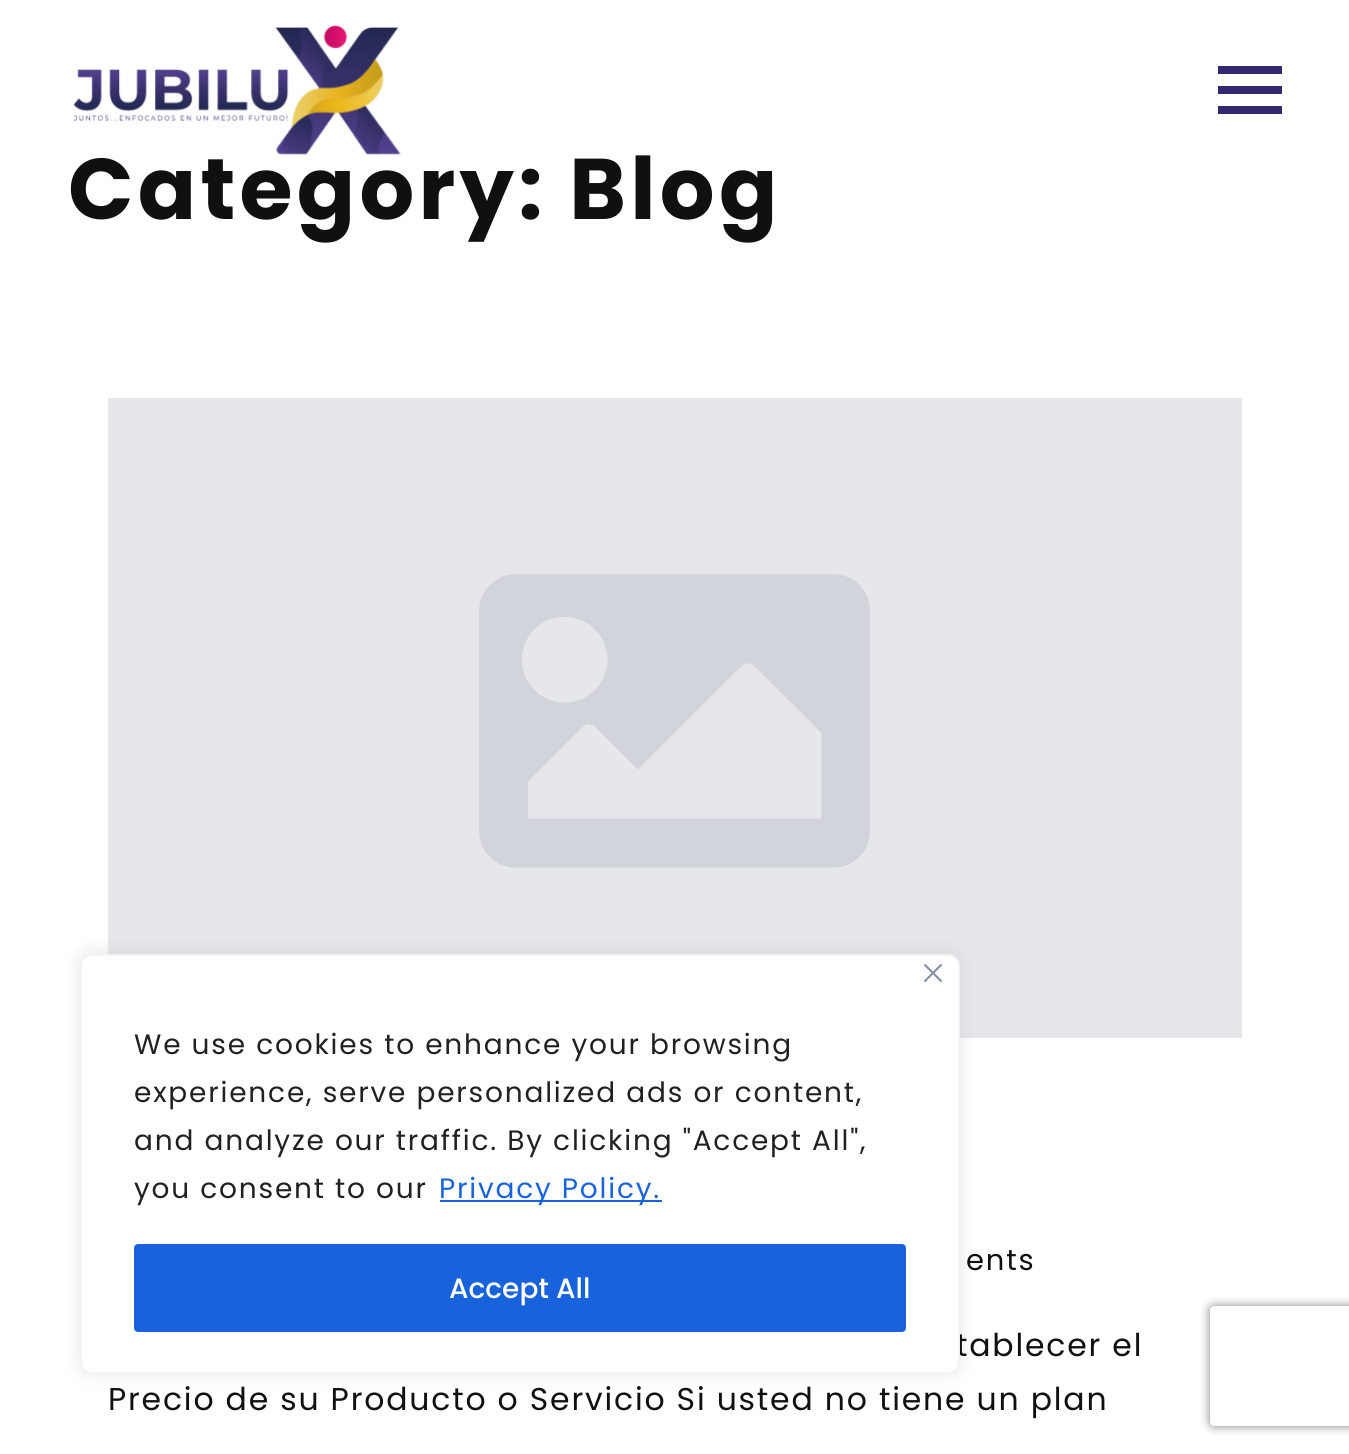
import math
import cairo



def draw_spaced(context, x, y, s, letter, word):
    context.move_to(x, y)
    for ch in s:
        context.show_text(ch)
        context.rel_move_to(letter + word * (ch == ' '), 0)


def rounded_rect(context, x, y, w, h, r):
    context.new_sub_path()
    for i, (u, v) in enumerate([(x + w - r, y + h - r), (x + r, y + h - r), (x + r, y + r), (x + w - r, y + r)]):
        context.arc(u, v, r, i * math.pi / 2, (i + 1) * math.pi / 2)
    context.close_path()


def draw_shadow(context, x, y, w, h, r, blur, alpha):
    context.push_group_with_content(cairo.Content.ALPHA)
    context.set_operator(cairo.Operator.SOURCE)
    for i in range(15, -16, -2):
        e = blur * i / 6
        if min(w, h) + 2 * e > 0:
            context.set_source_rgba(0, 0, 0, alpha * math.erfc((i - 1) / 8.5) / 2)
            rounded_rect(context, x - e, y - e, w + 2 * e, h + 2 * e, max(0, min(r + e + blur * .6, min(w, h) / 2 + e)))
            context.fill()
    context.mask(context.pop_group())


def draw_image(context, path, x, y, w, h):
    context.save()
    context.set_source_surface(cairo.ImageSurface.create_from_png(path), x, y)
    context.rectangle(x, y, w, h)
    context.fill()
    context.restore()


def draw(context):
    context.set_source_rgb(1, 1, 1)
    context.paint()
    draw_image(context, "images/1.png", 73, 25, 328, 130)
    context.set_source_rgb(50 / 255, 40 / 255, 110 / 255)
    context.rectangle(1218, 86, 64, 8)
    context.fill()
    context.rectangle(1218, 66, 64, 8)
    context.fill()
    context.rectangle(1218, 106, 64, 8)
    context.fill()
    draw_image(context, "images/2.png", 108, 398, 1134, 640)
    context.set_source_rgb(172 / 255, 171 / 255, 171 / 255)
    draw_shadow(context, 80, 952, 880, 420, 12, 10, 0.3)
    context.save()
    context.set_fill_rule(cairo.FillRule.EVEN_ODD)
    context.new_path()
    context.move_to(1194, 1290)
    context.line_to(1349, 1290)
    context.line_to(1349, 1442)
    context.line_to(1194, 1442)
    context.close_path()
    context.move_to(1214, 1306)
    context.line_to(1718, 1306)
    context.curve_to(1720, 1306, 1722, 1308, 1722, 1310)
    context.line_to(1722, 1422)
    context.curve_to(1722, 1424, 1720, 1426, 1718, 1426)
    context.line_to(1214, 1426)
    context.curve_to(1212, 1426, 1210, 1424, 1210, 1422)
    context.line_to(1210, 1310)
    context.curve_to(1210, 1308, 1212, 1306, 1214, 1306)
    context.close_path()
    context.clip()
    context.set_source_rgb(128 / 255, 128 / 255, 128 / 255)
    draw_shadow(context, 1210, 1306, 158, 120, 4, 5, 1)
    context.restore()
    context.select_font_face("Poppins", cairo.FontSlant.NORMAL, cairo.FontWeight.BOLD)
    context.set_font_size(86)
    context.set_source_rgb(16 / 255, 16 / 255, 16 / 255)
    draw_spaced(context, 68, 219, "Category: Blog", 4.25, 0)
    context.select_font_face("Poppins")
    context.set_font_size(29)
    draw_spaced(context, 966, 1270, "ents", 1.8, 0)
    context.set_font_size(31.5)
    draw_spaced(context, 956, 1356, "tablecer el", 1.8, 0)
    draw_spaced(context, 108, 1410, "Precio de su Producto o Servicio Si usted no tiene un plan", 1.8, 0)
    context.set_source_rgb(1, 1, 1)
    rounded_rect(context, 81, 955, 878, 418, 11)
    context.fill_preserve()
    context.set_source_rgb(244 / 255, 244 / 255, 244 / 255)
    context.stroke()
    draw_image(context, "images/3.png", 924, 964, 18, 18)
    context.set_font_size(28)
    context.set_source_rgb(33 / 255, 33 / 255, 33 / 255)
    draw_spaced(context, 134, 1054, "We use cookies to enhance your browsing", 1.8, 0)
    draw_spaced(context, 134, 1102, "experience, serve personalized ads or content,", 1.8, 0)
    draw_spaced(context, 134, 1150, "and analyze our traffic. By clicking \"Accept All\",", 1.8, 0)
    draw_spaced(context, 134, 1198, "you consent to our", 1.8, 0)
    context.set_source_rgb(24 / 255, 99 / 255, 220 / 255)
    context.rectangle(440, 1200, 222, 2)
    context.fill()
    draw_spaced(context, 439, 1198, "Privacy Policy.", 1.8, 0)
    rounded_rect(context, 136, 1246, 768, 84, 2)
    context.fill_preserve()
    context.set_line_width(4)
    context.stroke()
    context.select_font_face("Poppins Medium")
    context.set_source_rgb(1, 1, 1)
    context.move_to(449, 1298)
    context.show_text("Accept All")


surface = cairo.ImageSurface(cairo.Format.RGB24, 1349, 1454)
context = cairo.Context(surface)
options = cairo.FontOptions()
options.set_hint_metrics(cairo.HintMetrics.OFF)
options.set_hint_style(cairo.HintStyle.NONE)
context.set_font_options(options)
context.set_miter_limit(4)
draw(context)
surface.write_to_png("out.png")
